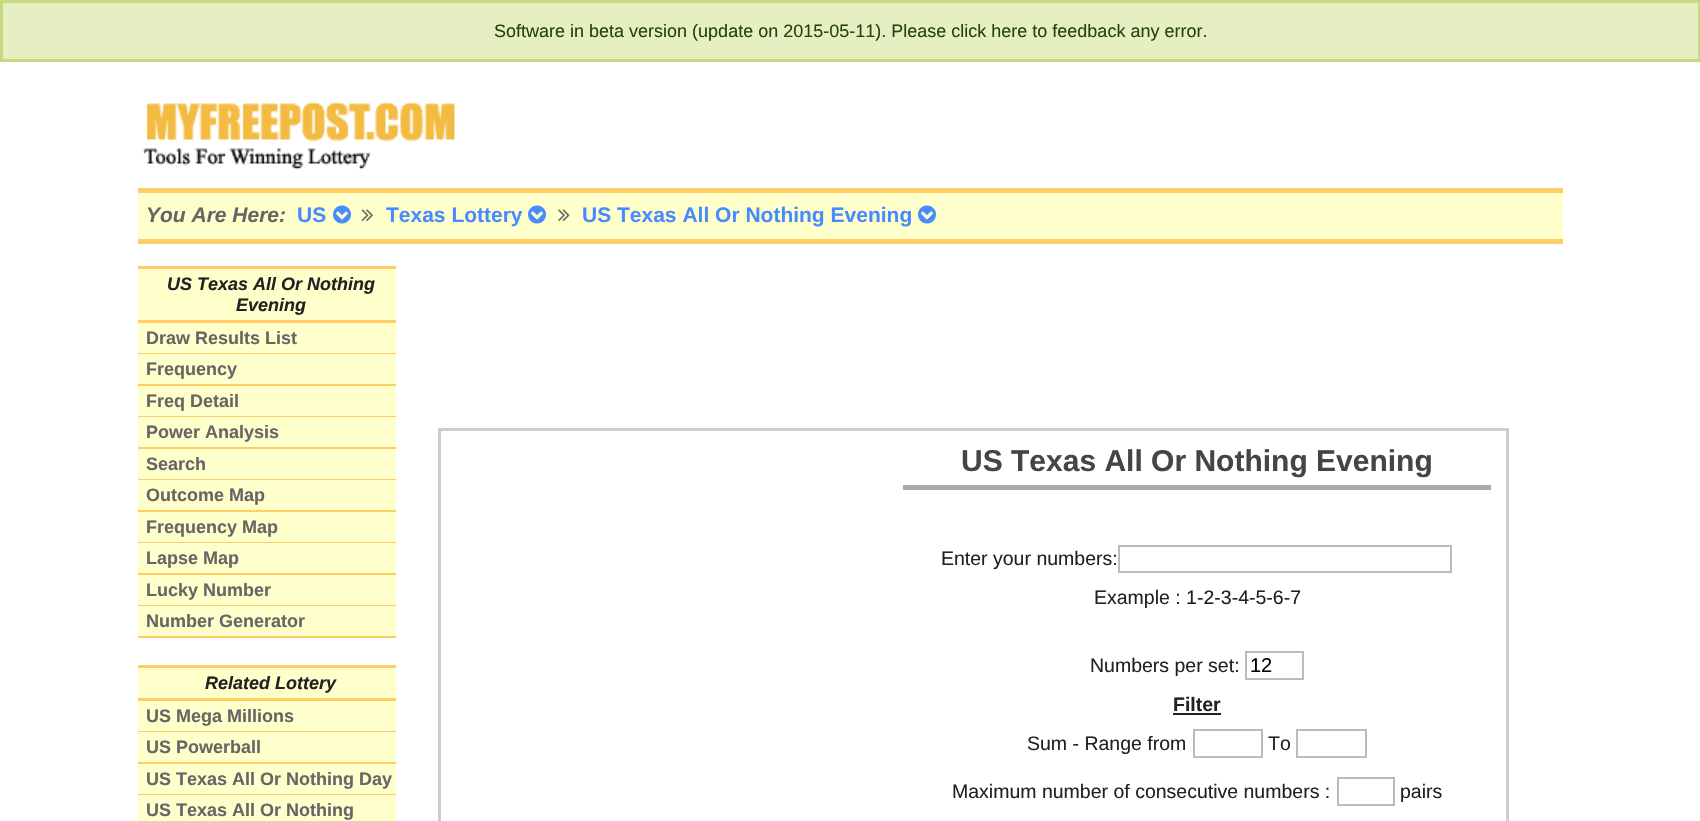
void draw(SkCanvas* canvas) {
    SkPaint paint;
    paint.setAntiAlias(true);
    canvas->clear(0xFFFFFFFF);
    paint.setColor(0xFFE6EFC2);
    canvas->drawRect(SkRect::MakeXYWH(1.5f, 1.5f, 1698, 59), paint);
    paint.setStyle(SkPaint::kStroke_Style);
    paint.setStrokeWidth(3);
    paint.setColor(0xFFC6D880);
    canvas->drawRect(SkRect::MakeXYWH(1.5f, 1.5f, 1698, 59), paint);
    SkFont font1(fontMgr->matchFamilyStyle("Liberation Sans", SkFontStyle::Normal()), 18);
    font1.setSubpixel(true);
    paint.setStyle(SkPaint::kFill_Style);
    paint.setColor(0xFF264409);
    canvas->drawString("Software in beta version (update on 2015-05-11). Please click here to feedback any error.", 494, 37, font1, paint);
    canvas->drawImageRect(SkImages::DeferredFromEncodedData(SkData::MakeFromFileName("img1.png")), SkRect::MakeXYWH(143, 101, 312, 69), SkSamplingOptions());
    paint.setColor(0xFFFFFFCC);
    canvas->drawRect(SkRect::MakeXYWH(138, 193, 1425, 46), paint);
    paint.setColor(0xFFFFCC66);
    canvas->drawRect(SkRect::MakeXYWH(138, 188, 1425, 5), paint);
    canvas->drawRect(SkRect::MakeXYWH(138, 239, 1425, 5), paint);
    SkFont font2(fontMgr->matchFamilyStyle("Liberation Sans", SkFontStyle::BoldItalic()), 21);
    font2.setSubpixel(true);
    paint.setColor(0xFF666666);
    canvas->drawString("You Are Here:", 146, 222, font2, paint);
    SkFont font3(fontMgr->matchFamilyStyle("Liberation Sans", SkFontStyle::Bold()), 21);
    font3.setSubpixel(true);
    paint.setColor(0xFF468BFF);
    canvas->drawString("US", 297, 222, font3, paint);
    canvas->drawImageRect(SkImages::DeferredFromEncodedData(SkData::MakeFromFileName("img2.png")), SkRect::MakeXYWH(333, 205, 18, 19), SkSamplingOptions());
    canvas->drawImageRect(SkImages::DeferredFromEncodedData(SkData::MakeFromFileName("img3.png")), SkRect::MakeXYWH(361, 209, 12, 12), SkSamplingOptions());
    canvas->drawString("Texas Lottery", 386, 222, font3, paint);
    canvas->drawImageRect(SkImages::DeferredFromEncodedData(SkData::MakeFromFileName("img2.png")), SkRect::MakeXYWH(528, 205, 18, 19), SkSamplingOptions());
    canvas->drawImageRect(SkImages::DeferredFromEncodedData(SkData::MakeFromFileName("img4.png")), SkRect::MakeXYWH(558, 209, 12, 12), SkSamplingOptions());
    canvas->drawString("US Texas All Or Nothing Evening", 582, 222, font3, paint);
    canvas->drawImageRect(SkImages::DeferredFromEncodedData(SkData::MakeFromFileName("img2.png")), SkRect::MakeXYWH(918, 205, 18, 19), SkSamplingOptions());
    paint.setColor(0xFFFFFFCC);
    canvas->drawRect(SkRect::MakeXYWH(138, 269, 258, 51), paint);
    paint.setColor(0xFFFFCC66);
    canvas->drawRect(SkRect::MakeXYWH(138, 266, 258, 3), paint);
    canvas->drawRect(SkRect::MakeXYWH(138, 320, 258, 3), paint);
    SkFont font4(fontMgr->matchFamilyStyle("Liberation Sans", SkFontStyle::BoldItalic()), 18);
    font4.setSubpixel(true);
    paint.setColor(0xFF222222);
    canvas->drawString("US Texas All Or Nothing", 167, 290, font4, paint);
    canvas->drawString("Evening", 236, 311, font4, paint);
    paint.setColor(0xFFFFFFCC);
    canvas->drawRect(SkRect::MakeXYWH(138, 323, 258, 30), paint);
    paint.setColor(0xFFFFCC66);
    canvas->drawRect(SkRect::MakeXYWH(138, 353, 258, 1), paint);
    SkFont font5(fontMgr->matchFamilyStyle("Liberation Sans", SkFontStyle::Bold()), 18);
    font5.setSubpixel(true);
    paint.setColor(0xFF666666);
    canvas->drawString("Draw Results List", 146, 344, font5, paint);
    paint.setColor(0xFFFFFFCC);
    canvas->drawRect(SkRect::MakeXYWH(138, 354, 258, 30), paint);
    paint.setColor(0xFFFFCC66);
    canvas->drawRect(SkRect::MakeXYWH(138, 384, 258, 2), paint);
    paint.setColor(0xFF666666);
    canvas->drawString("Frequency", 146, 375, font5, paint);
    paint.setColor(0xFFFFFFCC);
    canvas->drawRect(SkRect::MakeXYWH(138, 386, 258, 30), paint);
    paint.setColor(0xFFFFCC66);
    canvas->drawRect(SkRect::MakeXYWH(138, 416, 258, 1), paint);
    paint.setColor(0xFF666666);
    canvas->drawString("Freq Detail", 146, 407, font5, paint);
    paint.setColor(0xFFFFFFCC);
    canvas->drawRect(SkRect::MakeXYWH(138, 417, 258, 30), paint);
    paint.setColor(0xFFFFCC66);
    canvas->drawRect(SkRect::MakeXYWH(138, 447, 258, 2), paint);
    paint.setColor(0xFF666666);
    canvas->drawString("Power Analysis", 146, 438, font5, paint);
    paint.setColor(0xFFFFFFCC);
    canvas->drawRect(SkRect::MakeXYWH(138, 449, 258, 30), paint);
    paint.setColor(0xFFFFCC66);
    canvas->drawRect(SkRect::MakeXYWH(138, 479, 258, 1), paint);
    paint.setColor(0xFF666666);
    canvas->drawString("Search", 146, 470, font5, paint);
    paint.setColor(0xFFFFFFCC);
    canvas->drawRect(SkRect::MakeXYWH(138, 480, 258, 30), paint);
    paint.setColor(0xFFFFCC66);
    canvas->drawRect(SkRect::MakeXYWH(138, 510, 258, 2), paint);
    paint.setColor(0xFF666666);
    canvas->drawString("Outcome Map", 146, 501, font5, paint);
    paint.setColor(0xFFFFFFCC);
    canvas->drawRect(SkRect::MakeXYWH(138, 512, 258, 30), paint);
    paint.setColor(0xFFFFCC66);
    canvas->drawRect(SkRect::MakeXYWH(138, 542, 258, 1), paint);
    paint.setColor(0xFF666666);
    canvas->drawString("Frequency Map", 146, 533, font5, paint);
    paint.setColor(0xFFFFFFCC);
    canvas->drawRect(SkRect::MakeXYWH(138, 543, 258, 30), paint);
    paint.setColor(0xFFFFCC66);
    canvas->drawRect(SkRect::MakeXYWH(138, 573, 258, 2), paint);
    paint.setColor(0xFF666666);
    canvas->drawString("Lapse Map", 146, 564, font5, paint);
    paint.setColor(0xFFFFFFCC);
    canvas->drawRect(SkRect::MakeXYWH(138, 575, 258, 30), paint);
    paint.setColor(0xFFFFCC66);
    canvas->drawRect(SkRect::MakeXYWH(138, 605, 258, 1), paint);
    paint.setColor(0xFF666666);
    canvas->drawString("Lucky Number", 146, 596, font5, paint);
    paint.setColor(0xFFFFFFCC);
    canvas->drawRect(SkRect::MakeXYWH(138, 606, 258, 30), paint);
    paint.setColor(0xFFFFCC66);
    canvas->drawRect(SkRect::MakeXYWH(138, 636, 258, 2), paint);
    paint.setColor(0xFF666666);
    canvas->drawString("Number Generator", 146, 627, font5, paint);
    paint.setColor(0xFFFFFFCC);
    canvas->drawRect(SkRect::MakeXYWH(138, 668, 258, 30), paint);
    paint.setColor(0xFFFFCC66);
    canvas->drawRect(SkRect::MakeXYWH(138, 665, 258, 3), paint);
    canvas->drawRect(SkRect::MakeXYWH(138, 698, 258, 3), paint);
    paint.setColor(0xFF222222);
    canvas->drawString("Related Lottery", 205, 689, font4, paint);
    paint.setColor(0xFFFFFFCC);
    canvas->drawRect(SkRect::MakeXYWH(138, 701, 258, 30), paint);
    paint.setColor(0xFFFFCC66);
    canvas->drawRect(SkRect::MakeXYWH(138, 731, 258, 1), paint);
    paint.setColor(0xFF666666);
    canvas->drawString("US Mega Millions", 146, 722, font5, paint);
    paint.setColor(0xFFFFFFCC);
    canvas->drawRect(SkRect::MakeXYWH(138, 732, 258, 30), paint);
    paint.setColor(0xFFFFCC66);
    canvas->drawRect(SkRect::MakeXYWH(138, 762, 258, 2), paint);
    paint.setColor(0xFF666666);
    canvas->drawString("US Powerball", 146, 753, font5, paint);
    paint.setColor(0xFFFFFFCC);
    canvas->drawRect(SkRect::MakeXYWH(138, 764, 258, 30), paint);
    paint.setColor(0xFFFFCC66);
    canvas->drawRect(SkRect::MakeXYWH(138, 794, 258, 1), paint);
    paint.setColor(0xFF666666);
    canvas->drawString("US Texas All Or Nothing Day", 146, 785, font5, paint);
    paint.setColor(0xFFFFFFCC);
    canvas->drawRect(SkRect::MakeXYWH(138, 795, 258, 26), paint);
    paint.setColor(0xFF666666);
    canvas->drawString("US Texas All Or Nothing", 146, 816, font5, paint);
    paint.setStyle(SkPaint::kStroke_Style);
    paint.setColor(0xFFCCCCCC);
    canvas->drawRect(SkRect::MakeXYWH(439.5f, 429.5f, 1068, 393), paint);
    paint.setStyle(SkPaint::kFill_Style);
    paint.setColor(0xFFAAAAAA);
    canvas->drawRect(SkRect::MakeXYWH(903, 485, 588, 5), paint);
    SkFont font6(fontMgr->matchFamilyStyle("Liberation Sans", SkFontStyle::Bold()), 30);
    font6.setSubpixel(true);
    paint.setColor(0xFF454545);
    canvas->drawString("US Texas All Or Nothing Evening", 961, 471, font6, paint);
    SkFont font7(fontMgr->matchFamilyStyle("Liberation Sans", SkFontStyle::Normal()), 19.5f);
    font7.setSubpixel(true);
    paint.setColor(0xFF222222);
    canvas->drawString("Enter your numbers:", 941, 565, font7, paint);
    paint.setStyle(SkPaint::kStroke_Style);
    paint.setStrokeWidth(2);
    paint.setColor(0xFFBBBBBB);
    canvas->drawRect(SkRect::MakeXYWH(1119, 546, 332, 26), paint);
    paint.setStyle(SkPaint::kFill_Style);
    paint.setColor(0xFF222222);
    canvas->drawString("Example : 1-2-3-4-5-6-7", 1094, 604, font7, paint);
    canvas->drawString("Numbers per set:", 1090, 672, font7, paint);
    paint.setStyle(SkPaint::kStroke_Style);
    paint.setColor(0xFFBBBBBB);
    canvas->drawRect(SkRect::MakeXYWH(1246, 652, 57, 27), paint);
    SkFont font8(fontMgr->matchFamilyStyle("Liberation Sans", SkFontStyle::Normal()), 20);
    font8.setSubpixel(true);
    paint.setStyle(SkPaint::kFill_Style);
    paint.setColor(0xFF000000);
    canvas->drawString("12", 1250, 672, font8, paint);
    SkFont font9(fontMgr->matchFamilyStyle("Liberation Sans", SkFontStyle::Bold()), 19.5f);
    font9.setSubpixel(true);
    paint.setColor(0xFF222222);
    canvas->drawString("Filter", 1173, 711, font9, paint);
    canvas->drawRect(SkRect::MakeXYWH(1173, 713, 48, 2), paint);
    canvas->drawString("Sum - Range from", 1027, 750, font7, paint);
    paint.setStyle(SkPaint::kStroke_Style);
    paint.setColor(0xFFBBBBBB);
    canvas->drawRect(SkRect::MakeXYWH(1194, 730, 68, 27), paint);
    paint.setStyle(SkPaint::kFill_Style);
    paint.setColor(0xFF222222);
    canvas->drawString("To", 1268, 750, font7, paint);
    paint.setStyle(SkPaint::kStroke_Style);
    paint.setColor(0xFFBBBBBB);
    canvas->drawRect(SkRect::MakeXYWH(1297, 730, 69, 27), paint);
    paint.setStyle(SkPaint::kFill_Style);
    paint.setColor(0xFF222222);
    canvas->drawString("Maximum number of consecutive numbers :", 952, 798, font7, paint);
    paint.setStyle(SkPaint::kStroke_Style);
    paint.setColor(0xFFBBBBBB);
    canvas->drawRect(SkRect::MakeXYWH(1338, 778, 56, 27), paint);
    paint.setStyle(SkPaint::kFill_Style);
    paint.setColor(0xFF222222);
    canvas->drawString("pairs", 1400, 798, font7, paint);
}
